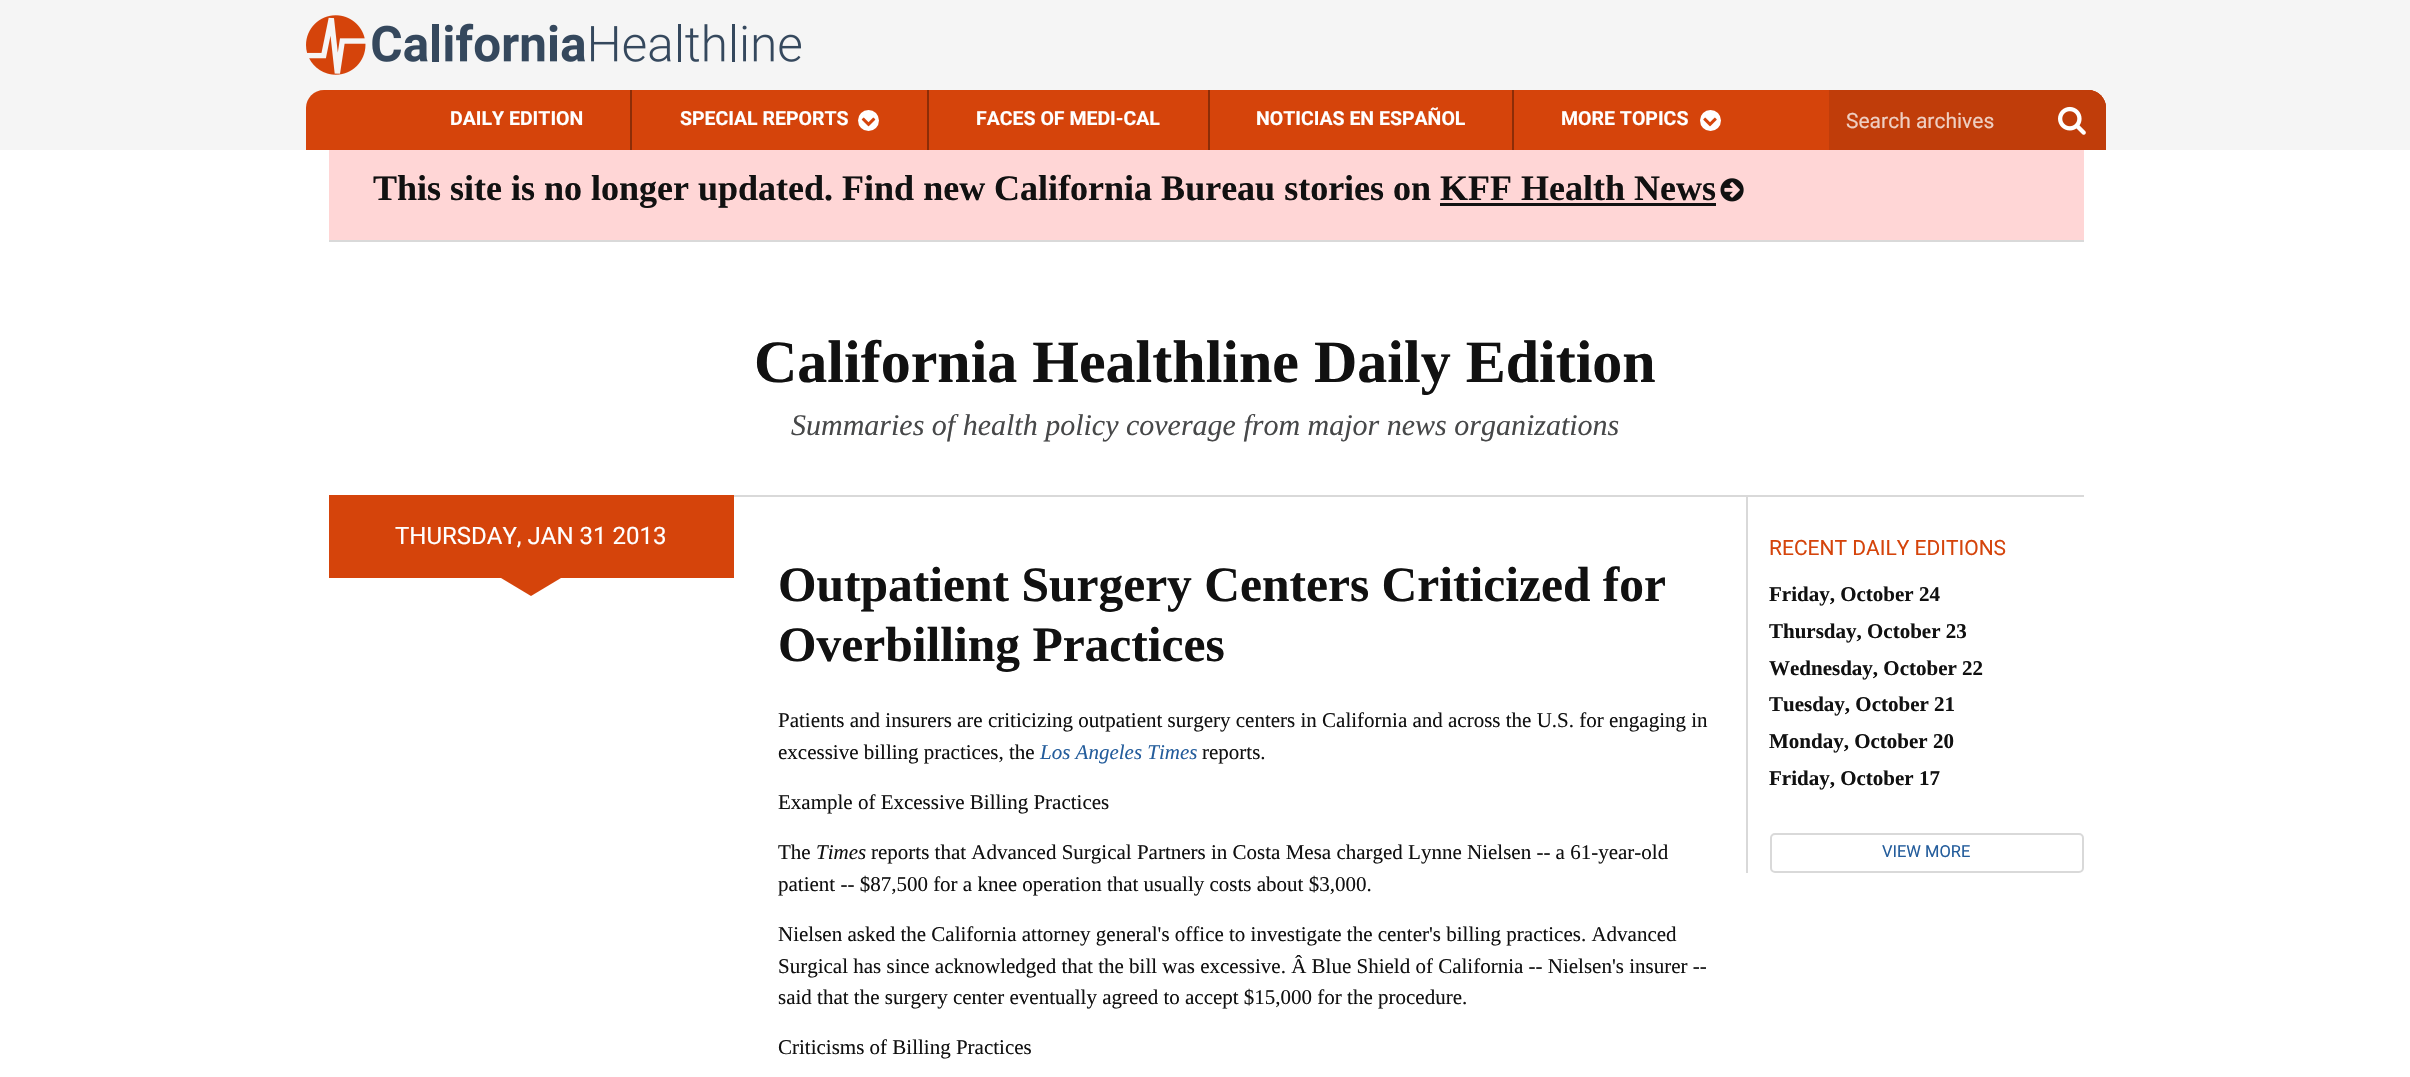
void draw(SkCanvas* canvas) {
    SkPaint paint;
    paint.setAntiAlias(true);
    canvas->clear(0xFFFFFFFF);
    paint.setColor(0xFFF5F5F5);
    canvas->drawRect(SkRect::MakeXYWH(0, 0, 2410, 150), paint);
    canvas->drawImageRect(SkImages::DeferredFromEncodedData(SkData::MakeFromFileName("img1.png")), SkRect::MakeXYWH(306, 15, 495, 60), SkSamplingOptions());
    paint.setColor(0xFFD5440B);
    canvas->drawPath(SkPathBuilder().moveTo(324, 90).lineTo(2088, 90).cubicTo(2098, 90, 2106, 98, 2106, 108).lineTo(2106, 150).lineTo(306, 150).lineTo(306, 108).cubicTo(306, 98, 314, 90, 324, 90).close().detach(), paint);
    SkFont font1(fontMgr->matchFamilyStyle("Roboto", SkFontStyle::Bold()), 19.5f);
    font1.setSubpixel(true);
    paint.setColor(0xFFFFFFFF);
    canvas->drawString("DAILY EDITION", 450, 125, font1, paint);
    paint.setColor(0xFF8C2D07);
    canvas->drawRect(SkRect::MakeXYWH(630, 90, 2, 60), paint);
    paint.setColor(0xFFFFFFFF);
    canvas->drawString("SPECIAL REPORTS", 680, 125, font1, paint);
    canvas->drawCircle(868.5f, 120.5f, 10.5f, paint);
    canvas->drawImageRect(SkImages::DeferredFromEncodedData(SkData::MakeFromFileName("img2.png")), SkRect::MakeXYWH(861, 117, 15, 10), SkSamplingOptions());
    paint.setColor(0xFF8C2D07);
    canvas->drawRect(SkRect::MakeXYWH(927, 90, 2, 60), paint);
    paint.setColor(0xFFFFFFFF);
    canvas->drawString("FACES OF MEDI-CAL", 976, 125, font1, paint);
    paint.setColor(0xFF8C2D07);
    canvas->drawRect(SkRect::MakeXYWH(1208, 90, 2, 60), paint);
    paint.setColor(0xFFFFFFFF);
    canvas->drawString("NOTICIAS EN ESPAÑOL", 1256, 125, font1, paint);
    paint.setColor(0xFF8C2D07);
    canvas->drawRect(SkRect::MakeXYWH(1512, 90, 2, 60), paint);
    paint.setColor(0xFFFFFFFF);
    canvas->drawString("MORE TOPICS", 1561, 125, font1, paint);
    canvas->drawCircle(1710.5f, 120.5f, 10.5f, paint);
    canvas->drawImageRect(SkImages::DeferredFromEncodedData(SkData::MakeFromFileName("img3.png")), SkRect::MakeXYWH(1703, 117, 14, 10), SkSamplingOptions());
    paint.setColor(0xFFC03D0A);
    canvas->drawPath(SkPathBuilder().moveTo(1829, 90).lineTo(2088, 90).cubicTo(2098, 90, 2106, 98, 2106, 108).lineTo(2106, 150).lineTo(1829, 150).close().detach(), paint);
    SkFont font2(fontMgr->matchFamilyStyle("Roboto", SkFontStyle::Normal()), 21);
    font2.setSubpixel(true);
    paint.setColor(0xFFEFCFC2);
    canvas->drawString("Search archives", 1846, 128, font2, paint);
    paint.setColor(0xFFC03D0A);
    canvas->drawPath(SkPathBuilder().moveTo(2040, 90).lineTo(2088, 90).cubicTo(2098, 90, 2106, 98, 2106, 108).lineTo(2106, 150).lineTo(2040, 150).close().detach(), paint);
    canvas->drawImageRect(SkImages::DeferredFromEncodedData(SkData::MakeFromFileName("img4.png")), SkRect::MakeXYWH(2058, 106, 28, 29), SkSamplingOptions());
    paint.setColor(0xFFFFD6D6);
    canvas->drawRect(SkRect::MakeXYWH(329, 150, 1755, 90), paint);
    paint.setColor(0xFFD9D9D9);
    canvas->drawRect(SkRect::MakeXYWH(329, 240, 1755, 2), paint);
    SkFont font3(fontMgr->matchFamilyStyle("Liberation Serif", SkFontStyle::Bold()), 36);
    font3.setSubpixel(true);
    paint.setColor(0xFF111111);
    canvas->drawString("This site is no longer updated. Find new California Bureau stories on KFF Health News", 373, 200, font3, paint);
    canvas->drawImageRect(SkImages::DeferredFromEncodedData(SkData::MakeFromFileName("img5.png")), SkRect::MakeXYWH(1720, 178, 24, 24), SkSamplingOptions());
    canvas->drawRect(SkRect::MakeXYWH(1440, 203, 276, 3), paint);
    paint.setColor(0xFFD9D9D9);
    canvas->drawRect(SkRect::MakeXYWH(734, 495, 1350, 2), paint);
    SkFont font4(fontMgr->matchFamilyStyle("Liberation Serif", SkFontStyle::Bold()), 60);
    font4.setSubpixel(true);
    paint.setColor(0xFF111111);
    canvas->drawString("California Healthline Daily Edition", 754, 382, font4, paint);
    SkFont font5(fontMgr->matchFamilyStyle("Liberation Serif", SkFontStyle::Italic()), 30);
    font5.setSubpixel(true);
    paint.setColor(0xFF474849);
    canvas->drawString("Summaries of health policy coverage from major news organizations", 791, 435, font5, paint);
    paint.setColor(0xFFD5440B);
    canvas->drawRect(SkRect::MakeXYWH(329, 495, 405, 83), paint);
    SkFont font6(fontMgr->matchFamilyStyle("Roboto", SkFontStyle::Normal()), 24);
    font6.setSubpixel(true);
    paint.setColor(0xFFFFFFFF);
    canvas->drawString("THURSDAY, JAN 31 2013", 395, 544, font6, paint);
    paint.setColor(0xFFD5440B);
    canvas->drawPath(SkPathBuilder().moveTo(501, 578).lineTo(561, 578).lineTo(531, 596).close().detach(), paint);
    SkFont font7(fontMgr->matchFamilyStyle("Liberation Serif", SkFontStyle::Bold()), 49.5f);
    font7.setSubpixel(true);
    paint.setColor(0xFF111111);
    canvas->drawString("Outpatient Surgery Centers Criticized for", 778, 601, font7, paint);
    canvas->drawString("Overbilling Practices", 778, 661, font7, paint);
    SkFont font8(fontMgr->matchFamilyStyle("Liberation Serif", SkFontStyle::Normal()), 21);
    font8.setSubpixel(true);
    canvas->drawString("Patients and insurers are criticizing outpatient surgery centers in California and across the U.S. for engaging in", 778, 727, font8, paint);
    canvas->drawString("excessive billing practices, the", 778, 759, font8, paint);
    SkFont font9(fontMgr->matchFamilyStyle("Liberation Serif", SkFontStyle::Italic()), 21);
    font9.setSubpixel(true);
    paint.setColor(0xFF245D9C);
    canvas->drawString("Los Angeles Times", 1040, 759, font9, paint);
    paint.setColor(0xFF111111);
    canvas->drawString("reports.", 1202, 759, font8, paint);
    canvas->drawString("Example of Excessive Billing Practices", 778, 809, font8, paint);
    canvas->drawString("The", 778, 859, font8, paint);
    canvas->drawString("Times", 816, 859, font9, paint);
    canvas->drawString("reports that Advanced Surgical Partners in Costa Mesa charged Lynne Nielsen -- a 61-year-old", 871, 859, font8, paint);
    canvas->drawString("patient -- $87,500 for a knee operation that usually costs about $3,000.", 778, 891, font8, paint);
    canvas->drawString("Nielsen asked the California attorney general's office to investigate the center's billing practices. Advanced", 778, 941, font8, paint);
    canvas->drawString("Surgical has since acknowledged that the bill was excessive. Â Blue Shield of California -- Nielsen's insurer --", 778, 973, font8, paint);
    canvas->drawString("said that the surgery center eventually agreed to accept $15,000 for the procedure.", 778, 1004, font8, paint);
    canvas->drawString("Criticisms of Billing Practices", 778, 1054, font8, paint);
    paint.setColor(0xFFD9D9D9);
    canvas->drawRect(SkRect::MakeXYWH(1746, 497, 2, 376), paint);
    paint.setColor(0xFFD5440B);
    canvas->drawString("RECENT DAILY EDITIONS", 1769, 555, font2, paint);
    SkFont font10(fontMgr->matchFamilyStyle("Liberation Serif", SkFontStyle::Bold()), 21);
    font10.setSubpixel(true);
    paint.setColor(0xFF111111);
    canvas->drawString("Friday, October 24", 1769, 601, font10, paint);
    canvas->drawString("Thursday, October 23", 1769, 638, font10, paint);
    canvas->drawString("Wednesday, October 22", 1769, 675, font10, paint);
    canvas->drawString("Tuesday, October 21", 1769, 711, font10, paint);
    canvas->drawString("Monday, October 20", 1769, 748, font10, paint);
    canvas->drawString("Friday, October 17", 1769, 785, font10, paint);
    paint.setStyle(SkPaint::kStroke_Style);
    paint.setStrokeWidth(2);
    paint.setColor(0xFFD9D9D9);
    canvas->drawRoundRect(SkRect::MakeXYWH(1771, 834, 312, 38), 4, 4, paint);
    SkFont font11(fontMgr->matchFamilyStyle("Roboto", SkFontStyle::Normal()), 16.5f);
    font11.setSubpixel(true);
    paint.setStyle(SkPaint::kFill_Style);
    paint.setColor(0xFF245D9C);
    canvas->drawString("VIEW MORE", 1882, 857, font11, paint);
}
